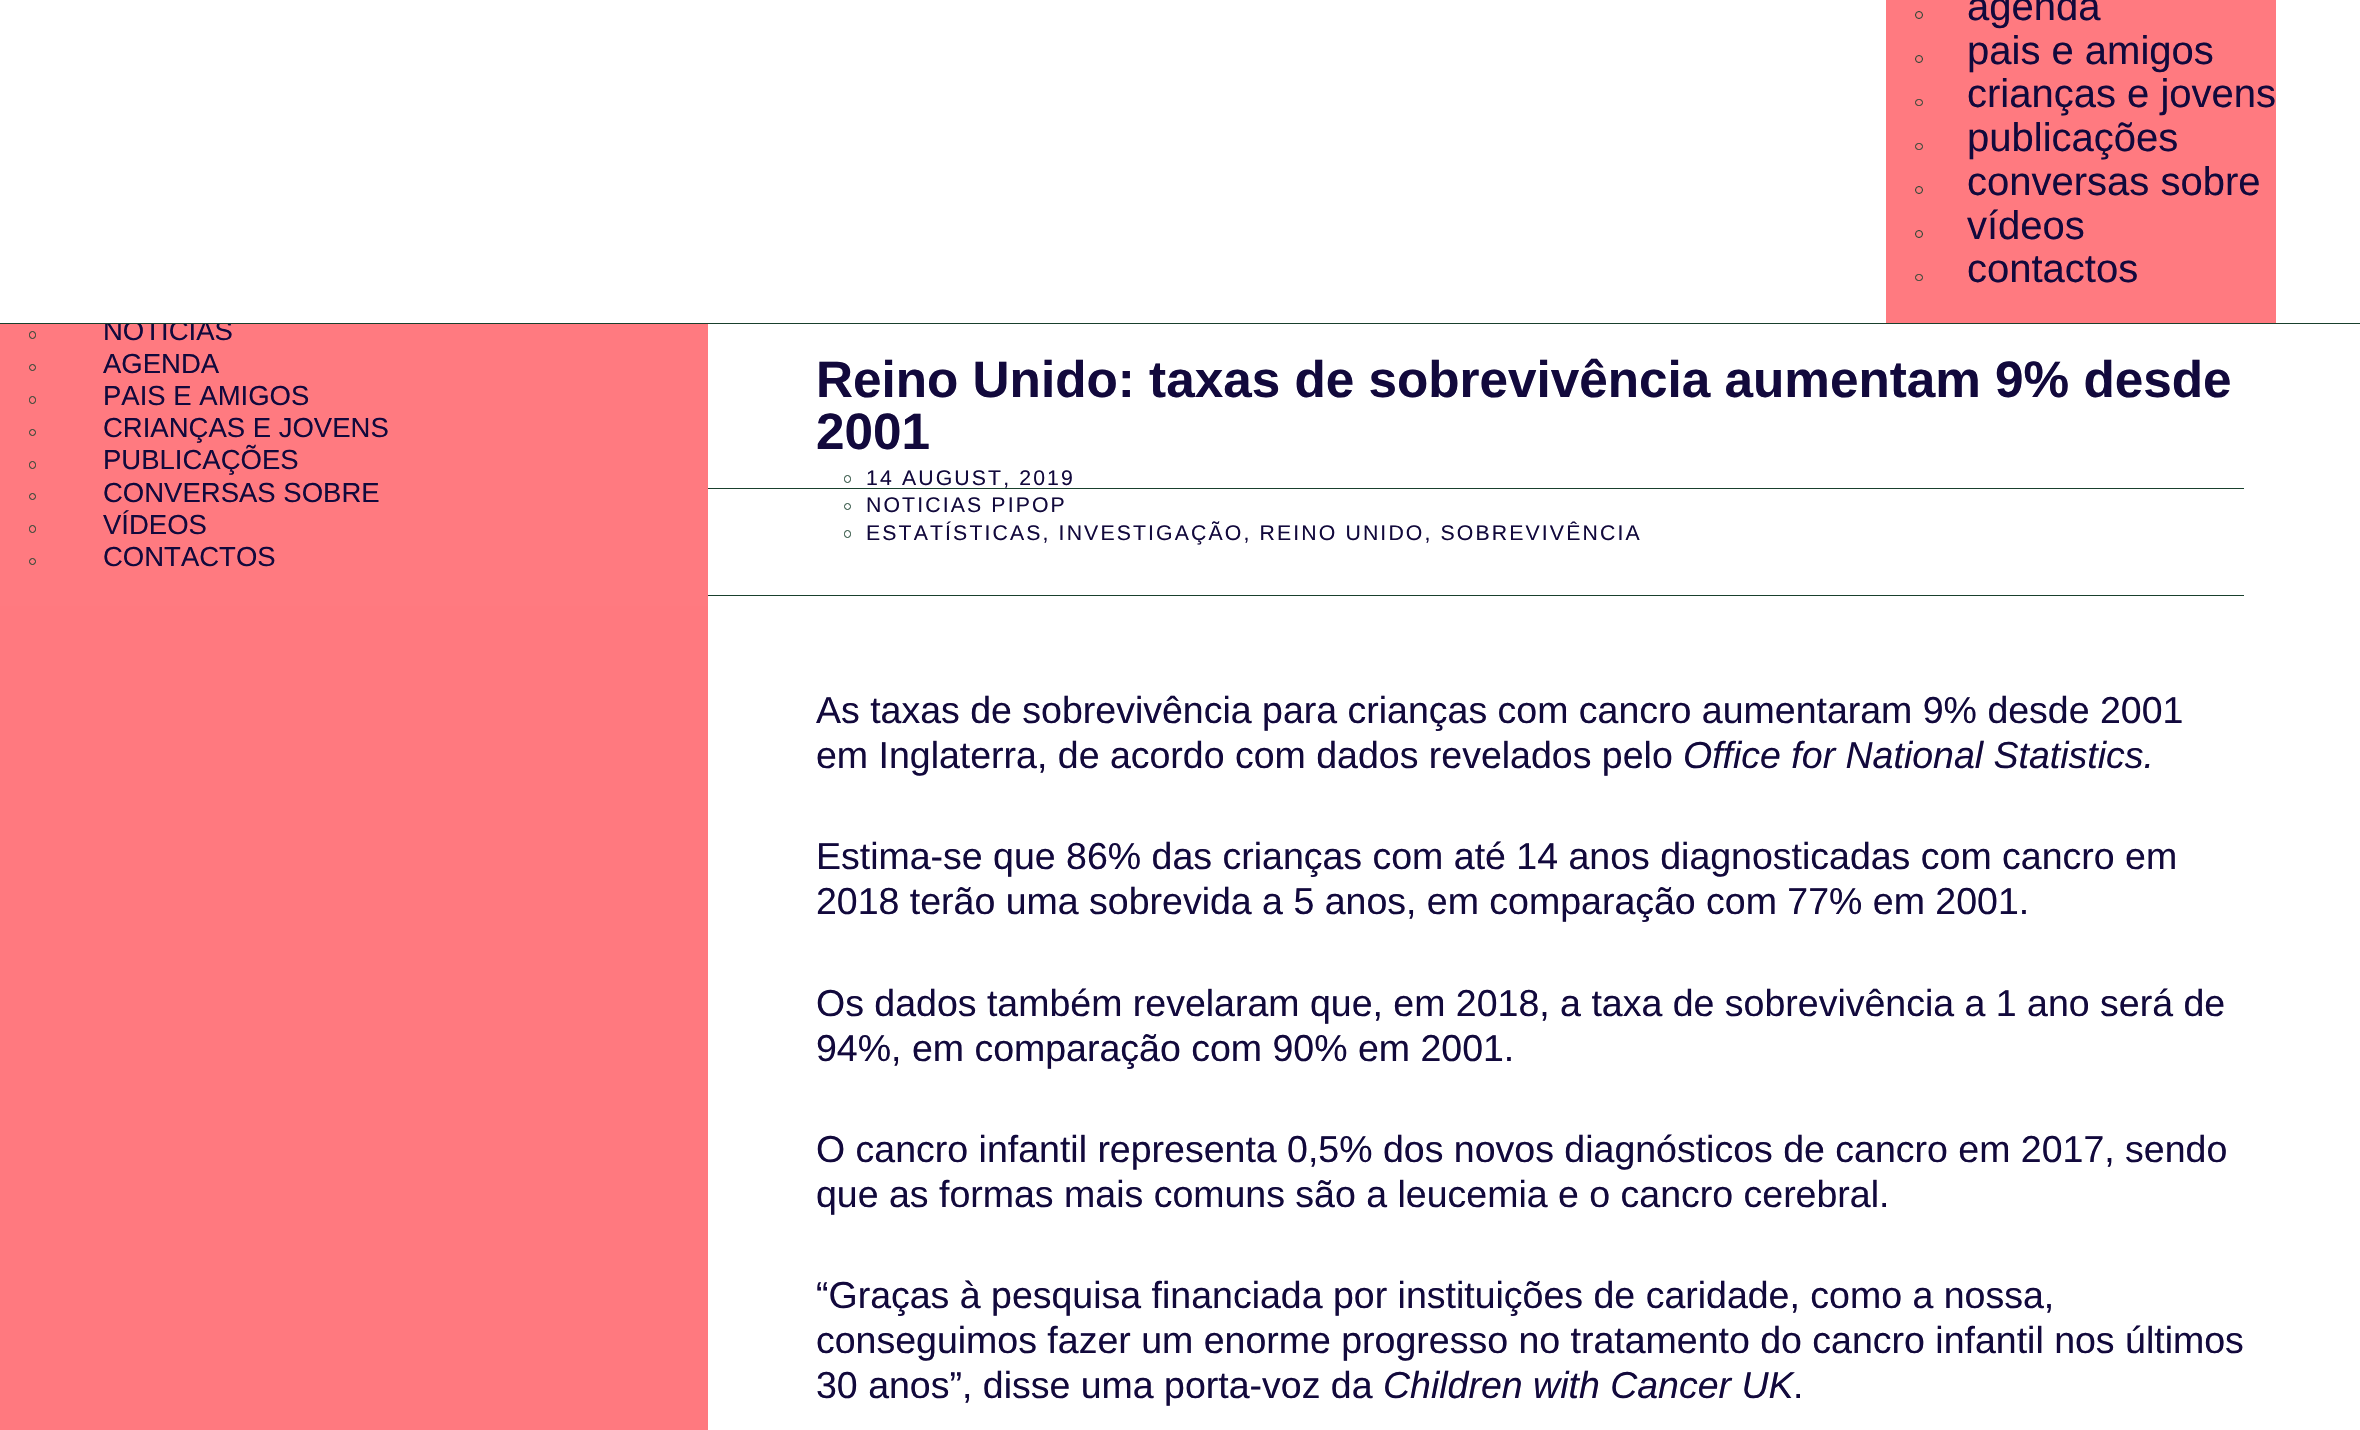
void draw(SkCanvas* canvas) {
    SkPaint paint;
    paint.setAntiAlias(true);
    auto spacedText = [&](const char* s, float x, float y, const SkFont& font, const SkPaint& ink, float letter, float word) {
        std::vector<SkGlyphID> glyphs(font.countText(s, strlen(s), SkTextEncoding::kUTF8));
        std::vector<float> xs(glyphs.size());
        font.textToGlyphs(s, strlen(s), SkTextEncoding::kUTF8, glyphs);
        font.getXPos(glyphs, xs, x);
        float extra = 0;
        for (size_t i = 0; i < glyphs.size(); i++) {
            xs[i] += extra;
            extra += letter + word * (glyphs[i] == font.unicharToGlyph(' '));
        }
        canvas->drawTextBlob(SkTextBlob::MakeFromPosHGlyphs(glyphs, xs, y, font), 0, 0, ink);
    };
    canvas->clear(0xFFFFFFFF);
    paint.setColor(0xFFFF7A80);
    canvas->drawRect(SkRect::MakeXYWH(0, 324, 708, 282), paint);
    SkFont font1(fontMgr->matchFamilyStyle("Liberation Sans", SkFontStyle::Normal()), 27.5f);
    font1.setSubpixel(true);
    paint.setColor(0xFF12093C);
    canvas->drawString("NOTÍCIAS", 103, 340, font1, paint);
    paint.setColor(0xFFFFFFFF);
    canvas->drawRect(SkRect::MakeXYWH(104, 316, 126, 7), paint);
    paint.setColor(0xFF19402D);
    canvas->drawRect(SkRect::MakeXYWH(0, 323, 2360, 1), paint);
    paint.setColor(0xFFFF7A80);
    canvas->drawRect(SkRect::MakeXYWH(1886, 0, 390, 323), paint);
    paint.setStyle(SkPaint::kStroke_Style);
    paint.setStrokeWidth(1);
    paint.setColor(0xFF19402D);
    canvas->drawCircle(1919, 15, 3.5f, paint);
    SkFont font2(fontMgr->matchFamilyStyle("Liberation Sans", SkFontStyle::Normal()), 40);
    font2.setSubpixel(true);
    paint.setStyle(SkPaint::kFill_Style);
    paint.setColor(0xFF12093C);
    canvas->drawString("agenda", 1967, 20, font2, paint);
    paint.setStyle(SkPaint::kStroke_Style);
    paint.setColor(0xFF19402D);
    canvas->drawCircle(1919, 59, 3.5f, paint);
    paint.setStyle(SkPaint::kFill_Style);
    paint.setColor(0xFF12093C);
    canvas->drawString("pais e amigos", 1967, 64, font2, paint);
    paint.setStyle(SkPaint::kStroke_Style);
    paint.setColor(0xFF19402D);
    canvas->drawRoundRect(SkRect::MakeXYWH(1915.5f, 99.5f, 7, 6), 3, 3, paint);
    paint.setStyle(SkPaint::kFill_Style);
    paint.setColor(0xFF12093C);
    canvas->drawString("crianças e jovens", 1967, 107, font2, paint);
    paint.setStyle(SkPaint::kStroke_Style);
    paint.setColor(0xFF19402D);
    canvas->drawRoundRect(SkRect::MakeXYWH(1915.5f, 143.5f, 7, 6), 3, 3, paint);
    paint.setStyle(SkPaint::kFill_Style);
    paint.setColor(0xFF12093C);
    canvas->drawString("publicações", 1967, 151, font2, paint);
    paint.setStyle(SkPaint::kStroke_Style);
    paint.setColor(0xFF19402D);
    canvas->drawCircle(1919, 190, 3.5f, paint);
    paint.setStyle(SkPaint::kFill_Style);
    paint.setColor(0xFF12093C);
    canvas->drawString("conversas sobre", 1967, 195, font2, paint);
    paint.setStyle(SkPaint::kStroke_Style);
    paint.setColor(0xFF19402D);
    canvas->drawCircle(1919, 234, 3.5f, paint);
    paint.setStyle(SkPaint::kFill_Style);
    paint.setColor(0xFF12093C);
    canvas->drawString("vídeos", 1967, 239, font2, paint);
    paint.setStyle(SkPaint::kStroke_Style);
    paint.setColor(0xFF19402D);
    canvas->drawRoundRect(SkRect::MakeXYWH(1915.5f, 274.5f, 7, 6), 3, 3, paint);
    paint.setStyle(SkPaint::kFill_Style);
    paint.setColor(0xFF12093C);
    canvas->drawString("contactos", 1967, 282, font2, paint);
    paint.setColor(0xFFFF797F);
    canvas->drawRect(SkRect::MakeXYWH(0, 606, 708, 824), paint);
    paint.setStyle(SkPaint::kStroke_Style);
    paint.setColor(0xFF19402D);
    canvas->drawRoundRect(SkRect::MakeXYWH(29.5f, 331.5f, 6, 7), 3, 3, paint);
    canvas->drawCircle(32.5f, 367.5f, 3, paint);
    paint.setStyle(SkPaint::kFill_Style);
    paint.setColor(0xFF12093C);
    canvas->drawString("AGENDA", 103, 373, font1, paint);
    paint.setStyle(SkPaint::kStroke_Style);
    paint.setColor(0xFF19402D);
    canvas->drawRoundRect(SkRect::MakeXYWH(29.5f, 396.5f, 6, 7), 3, 3, paint);
    paint.setStyle(SkPaint::kFill_Style);
    paint.setColor(0xFF12093C);
    canvas->drawString("PAIS E AMIGOS", 103, 405, font1, paint);
    paint.setStyle(SkPaint::kStroke_Style);
    paint.setColor(0xFF19402D);
    canvas->drawCircle(32.5f, 432.5f, 3, paint);
    paint.setStyle(SkPaint::kFill_Style);
    paint.setColor(0xFF12093C);
    canvas->drawString("CRIANÇAS E JOVENS", 103, 437, font1, paint);
    paint.setStyle(SkPaint::kStroke_Style);
    paint.setColor(0xFF19402D);
    canvas->drawRoundRect(SkRect::MakeXYWH(29.5f, 461.5f, 6, 7), 3, 3, paint);
    paint.setStyle(SkPaint::kFill_Style);
    paint.setColor(0xFF12093C);
    canvas->drawString("PUBLICAÇÕES", 103, 469, font1, paint);
    paint.setStyle(SkPaint::kStroke_Style);
    paint.setColor(0xFF19402D);
    canvas->drawCircle(32.5f, 496.5f, 3, paint);
    paint.setStyle(SkPaint::kFill_Style);
    paint.setColor(0xFF12093C);
    canvas->drawString("CONVERSAS SOBRE", 103, 502, font1, paint);
    paint.setStyle(SkPaint::kStroke_Style);
    paint.setColor(0xFF19402D);
    canvas->drawRoundRect(SkRect::MakeXYWH(29.5f, 525.5f, 6, 7), 3, 3, paint);
    paint.setStyle(SkPaint::kFill_Style);
    paint.setColor(0xFF12093C);
    canvas->drawString("VÍDEOS", 103, 534, font1, paint);
    paint.setStyle(SkPaint::kStroke_Style);
    paint.setColor(0xFF19402D);
    canvas->drawCircle(32.5f, 561.5f, 3, paint);
    paint.setStyle(SkPaint::kFill_Style);
    paint.setColor(0xFF12093C);
    canvas->drawString("CONTACTOS", 103, 566, font1, paint);
    SkFont font3(fontMgr->matchFamilyStyle("Liberation Sans", SkFontStyle::Bold()), 51.25f);
    font3.setSubpixel(true);
    canvas->drawString("Reino Unido: taxas de sobrevivência aumentam 9% desde", 816, 397, font3, paint);
    canvas->drawString("2001", 816, 449, font3, paint);
    paint.setColor(0xFF19402D);
    canvas->drawRect(SkRect::MakeXYWH(708, 488, 1536, 1), paint);
    canvas->drawRect(SkRect::MakeXYWH(708, 595, 1536, 1), paint);
    paint.setStyle(SkPaint::kStroke_Style);
    canvas->drawRoundRect(SkRect::MakeXYWH(844.5f, 475.5f, 6, 7), 3, 3, paint);
    SkFont font4(fontMgr->matchFamilyStyle("Liberation Sans", SkFontStyle::Normal()), 21.25f);
    font4.setSubpixel(true);
    paint.setStyle(SkPaint::kFill_Style);
    paint.setColor(0xFF12093C);
    spacedText("14 AUGUST, 2019", 866, 485, font4, paint, 2.12f, 0);
    paint.setStyle(SkPaint::kStroke_Style);
    paint.setColor(0xFF19402D);
    canvas->drawCircle(847.5f, 506.5f, 3, paint);
    paint.setStyle(SkPaint::kFill_Style);
    paint.setColor(0xFF12093C);
    spacedText("NOTICIAS PIPOP", 866, 512, font4, paint, 2.12f, 0);
    paint.setStyle(SkPaint::kStroke_Style);
    paint.setColor(0xFF19402D);
    canvas->drawRoundRect(SkRect::MakeXYWH(844.5f, 530.5f, 6, 7), 3, 3, paint);
    paint.setStyle(SkPaint::kFill_Style);
    paint.setColor(0xFF12093C);
    spacedText("ESTATÍSTICAS, INVESTIGAÇÃO, REINO UNIDO, SOBREVIVÊNCIA", 866, 540, font4, paint, 2.12f, 0);
    SkFont font5(fontMgr->matchFamilyStyle("Liberation Sans", SkFontStyle::Normal()), 37.5f);
    font5.setSubpixel(true);
    canvas->drawString("As taxas de sobrevivência para crianças com cancro aumentaram 9% desde 2001", 816, 723, font5, paint);
    canvas->drawString("em Inglaterra, de acordo com dados revelados pelo", 816, 768, font5, paint);
    SkFont font6(fontMgr->matchFamilyStyle("Liberation Sans", SkFontStyle::Italic()), 37.5f);
    font6.setSubpixel(true);
    canvas->drawString("Office for National Statistics.", 1683, 768, font6, paint);
    canvas->drawString("Estima-se que 86% das crianças com até 14 anos diagnosticadas com cancro em", 816, 869, font5, paint);
    canvas->drawString("2018 terão uma sobrevida a 5 anos, em comparação com 77% em 2001.", 816, 914, font5, paint);
    canvas->drawString("Os dados também revelaram que, em 2018, a taxa de sobrevivência a 1 ano será de", 816, 1016, font5, paint);
    canvas->drawString("94%, em comparação com 90% em 2001.", 816, 1061, font5, paint);
    canvas->drawString("O cancro infantil representa 0,5% dos novos diagnósticos de cancro em 2017, sendo", 816, 1162, font5, paint);
    canvas->drawString("que as formas mais comuns são a leucemia e o cancro cerebral.", 816, 1207, font5, paint);
    canvas->drawString("“Graças à pesquisa financiada por instituições de caridade, como a nossa,", 816, 1308, font5, paint);
    canvas->drawString("conseguimos fazer um enorme progresso no tratamento do cancro infantil nos últimos", 816, 1353, font5, paint);
    canvas->drawString("30 anos”, disse uma porta-voz da", 816, 1398, font5, paint);
    canvas->drawString("Children with Cancer UK", 1383, 1398, font6, paint);
    canvas->drawString(".", 1793, 1398, font5, paint);
}
